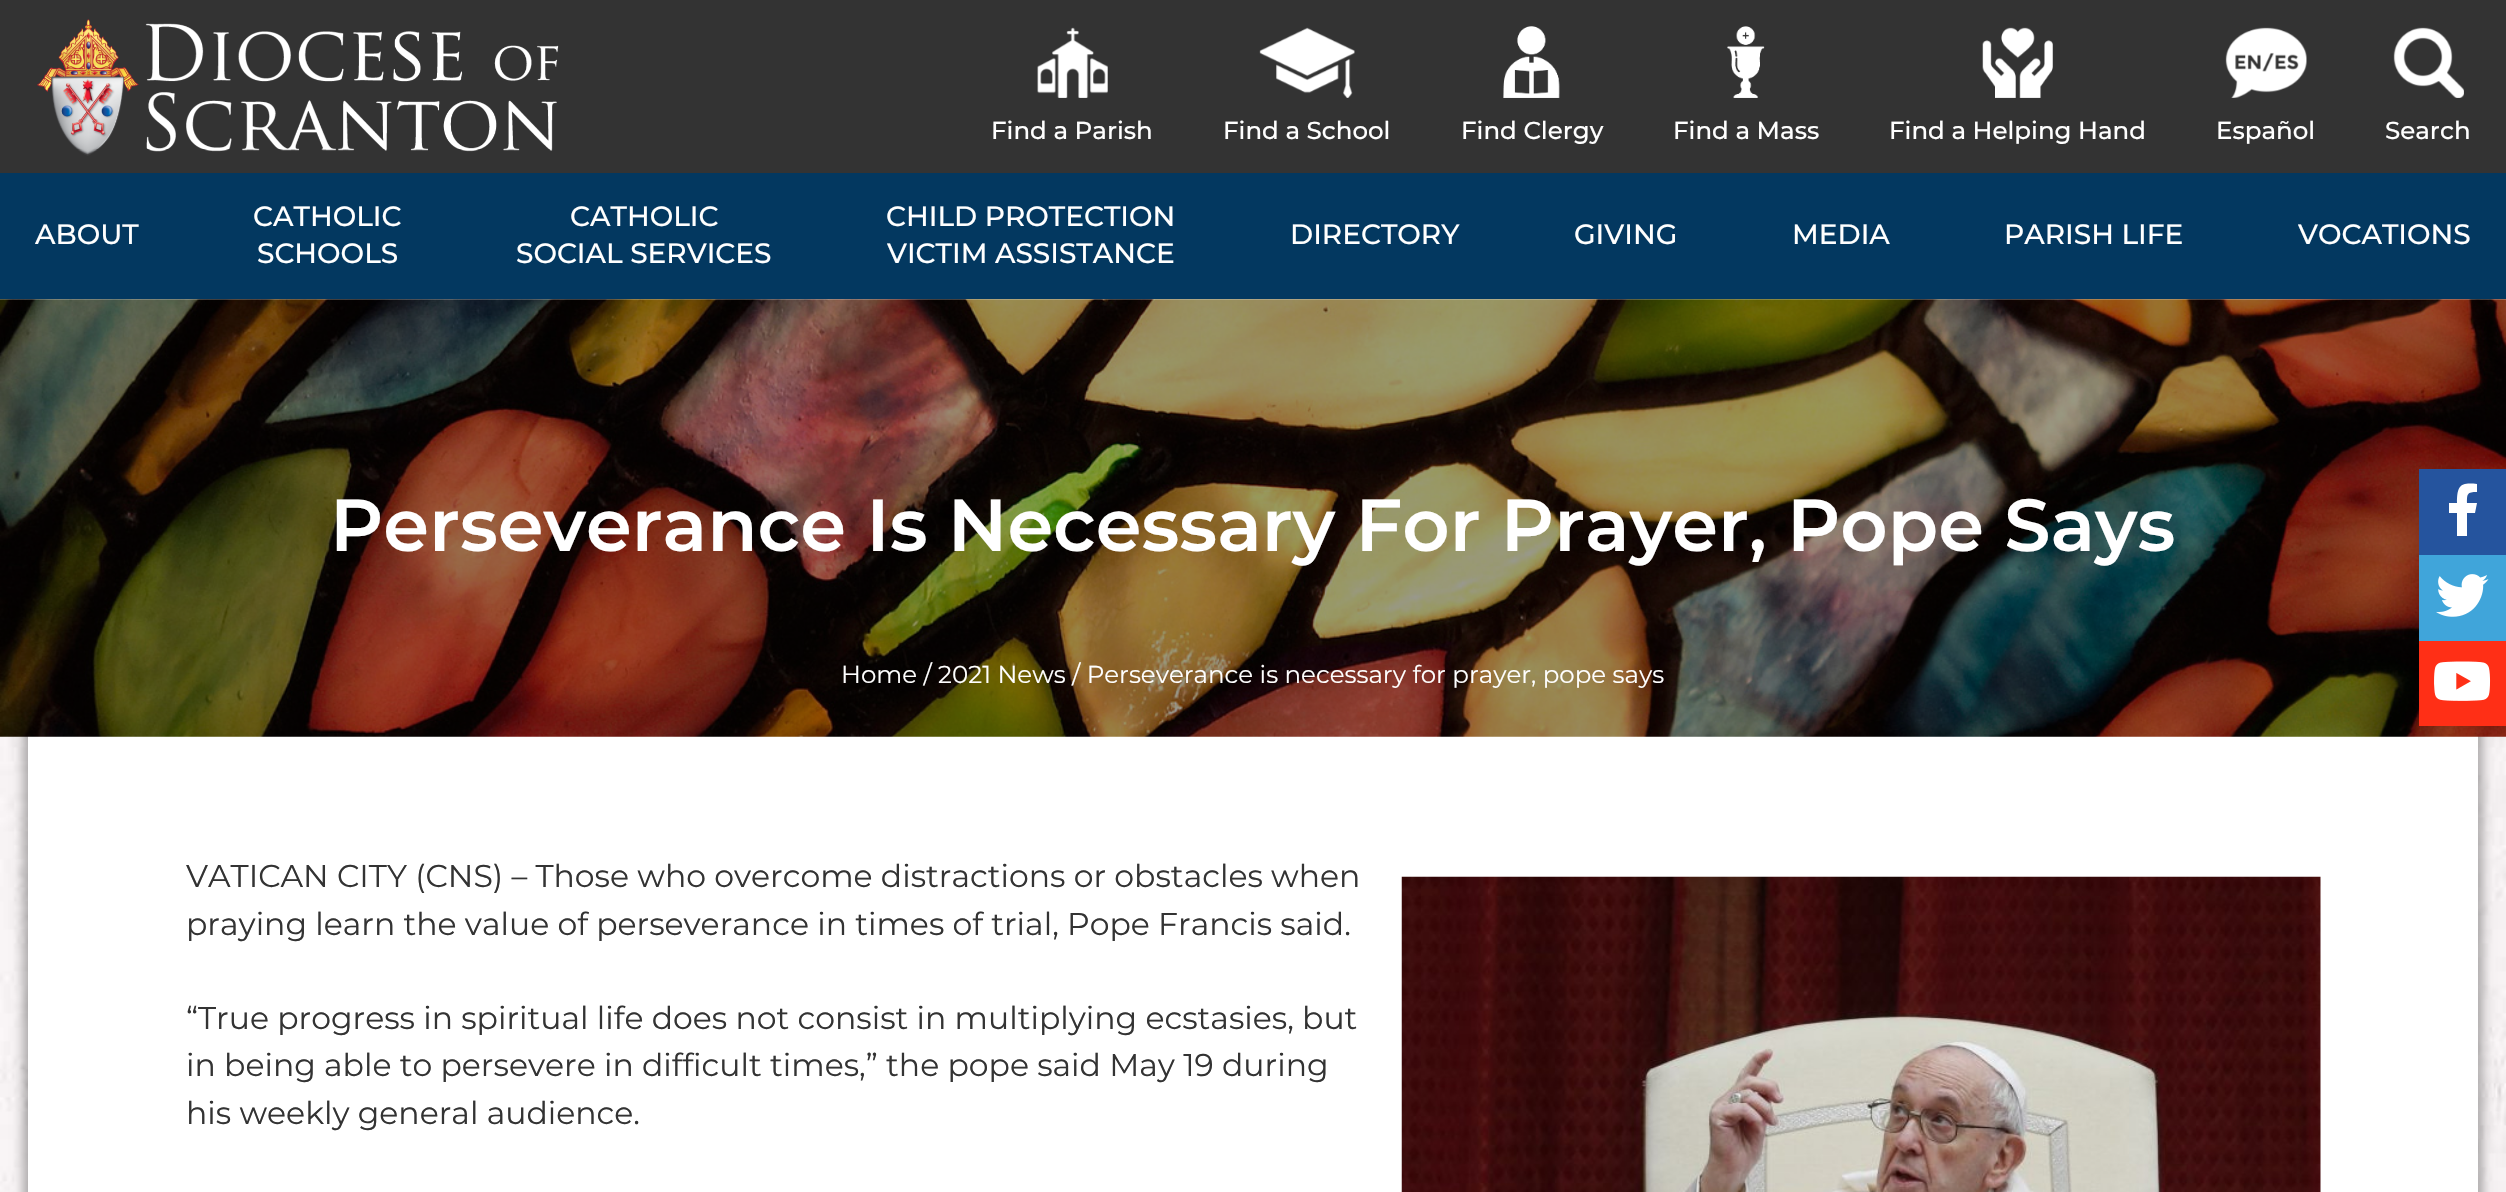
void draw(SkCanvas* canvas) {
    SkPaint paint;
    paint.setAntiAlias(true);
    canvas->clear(0xFFFFFFFF);
    paint.setColor(0xFF333333);
    canvas->drawRect(SkRect::MakeXYWH(0, 0, 2506, 173), paint);
    canvas->drawImageRect(SkImages::DeferredFromEncodedData(SkData::MakeFromFileName("img1.png")), SkRect::MakeXYWH(37, 19, 522, 137), SkSamplingOptions());
    canvas->drawImageRect(SkImages::DeferredFromEncodedData(SkData::MakeFromFileName("img2.png")), SkRect::MakeXYWH(1037, 27, 71, 71), SkSamplingOptions());
    SkFont font1(fontMgr->matchFamilyStyle("Montserrat", SkFontStyle(500, SkFontStyle::kNormal_Width, SkFontStyle::kUpright_Slant)), 24.5f);
    font1.setSubpixel(true);
    paint.setColor(0xFFFFFFFF);
    canvas->drawString("Find a Parish", 991, 139, font1, paint);
    canvas->drawImageRect(SkImages::DeferredFromEncodedData(SkData::MakeFromFileName("img3.png")), SkRect::MakeXYWH(1259, 27, 96, 71), SkSamplingOptions());
    canvas->drawString("Find a School", 1223, 139, font1, paint);
    canvas->drawImageRect(SkImages::DeferredFromEncodedData(SkData::MakeFromFileName("img4.png")), SkRect::MakeXYWH(1503, 26, 57, 72), SkSamplingOptions());
    canvas->drawString("Find Clergy", 1461, 139, font1, paint);
    canvas->drawImageRect(SkImages::DeferredFromEncodedData(SkData::MakeFromFileName("img5.png")), SkRect::MakeXYWH(1727, 26, 38, 72), SkSamplingOptions());
    canvas->drawString("Find a Mass", 1673, 139, font1, paint);
    canvas->drawImageRect(SkImages::DeferredFromEncodedData(SkData::MakeFromFileName("img6.png")), SkRect::MakeXYWH(1982, 27, 71, 71), SkSamplingOptions());
    canvas->drawString("Find a Helping Hand", 1889, 139, font1, paint);
    canvas->drawImageRect(SkImages::DeferredFromEncodedData(SkData::MakeFromFileName("img7.png")), SkRect::MakeXYWH(2225, 27, 82, 71), SkSamplingOptions());
    canvas->drawString("Español", 2216, 139, font1, paint);
    canvas->drawImageRect(SkImages::DeferredFromEncodedData(SkData::MakeFromFileName("img8.png")), SkRect::MakeXYWH(2393, 27, 71, 71), SkSamplingOptions());
    canvas->drawString("Search", 2385, 139, font1, paint);
    paint.setColor(0xFF033860);
    canvas->drawRect(SkRect::MakeXYWH(0, 173, 2506, 126), paint);
    SkFont font2(fontMgr->matchFamilyStyle("Montserrat", SkFontStyle(500, SkFontStyle::kNormal_Width, SkFontStyle::kUpright_Slant)), 28);
    font2.setSubpixel(true);
    paint.setColor(0xFFFFFFFF);
    canvas->drawString("ABOUT", 35, 244, font2, paint);
    canvas->drawString("CATHOLIC", 253, 226, font2, paint);
    canvas->drawString("SCHOOLS", 257, 263, font2, paint);
    canvas->drawString("CATHOLIC", 570, 226, font2, paint);
    canvas->drawString("SOCIAL SERVICES", 516, 263, font2, paint);
    canvas->drawString("CHILD PROTECTION", 886, 226, font2, paint);
    canvas->drawString("VICTIM ASSISTANCE", 887, 263, font2, paint);
    canvas->drawString("DIRECTORY", 1290, 244, font2, paint);
    canvas->drawString("GIVING", 1574, 244, font2, paint);
    canvas->drawString("MEDIA", 1792, 244, font2, paint);
    canvas->drawString("PARISH LIFE", 2004, 244, font2, paint);
    canvas->drawString("VOCATIONS", 2298, 244, font2, paint);
    canvas->drawImageRect(SkImages::DeferredFromEncodedData(SkData::MakeFromFileName("img9.png")), SkRect::MakeXYWH(0, 299, 2506, 893), SkSamplingOptions());
    paint.setColor(0x4D000000);
    paint.setMaskFilter(SkMaskFilter::MakeBlur(kNormal_SkBlurStyle, 5));
    canvas->drawRect(SkRect::MakeXYWH(23, 719, 2460, 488), paint);
    paint.setMaskFilter(nullptr);
    paint.setColor(0xFFFFFFFF);
    canvas->drawRect(SkRect::MakeXYWH(28, 736, 2450, 456), paint);
    canvas->drawImageRect(SkImages::DeferredFromEncodedData(SkData::MakeFromFileName("img10.png")), SkRect::MakeXYWH(0, 299, 2506, 438), SkSamplingOptions());
    SkFont font3(fontMgr->matchFamilyStyle("Montserrat", SkFontStyle(600, SkFontStyle::kNormal_Width, SkFontStyle::kUpright_Slant)), 73.5f);
    font3.setSubpixel(true);
    canvas->drawString("Perseverance Is Necessary For Prayer, Pope Says", 330, 551, font3, paint);
    SkFont font4(fontMgr->matchFamilyStyle("Montserrat", SkFontStyle::Normal()), 24.5f);
    font4.setSubpixel(true);
    canvas->drawString("Home / 2021 News / Perseverance is necessary for prayer, pope says", 841, 683, font4, paint);
    SkFont font5(fontMgr->matchFamilyStyle("Montserrat", SkFontStyle::Normal()), 31.5f);
    font5.setSubpixel(true);
    paint.setColor(0xFF333333);
    canvas->drawString("VATICAN CITY (CNS) – Those who overcome distractions or obstacles when", 186, 887, font5, paint);
    canvas->drawString("praying learn the value of perseverance in times of trial, Pope Francis said.", 186, 935, font5, paint);
    canvas->drawImageRect(SkImages::DeferredFromEncodedData(SkData::MakeFromFileName("img11.png")), SkRect::MakeXYWH(1401, 876, 920, 316), SkSamplingOptions());
    canvas->drawString("“True progress in spiritual life does not consist in multiplying ecstasies, but", 186, 1029, font5, paint);
    canvas->drawString("in being able to persevere in difficult times,” the pope said May 19 during", 186, 1076, font5, paint);
    canvas->drawString("his weekly general audience.", 186, 1124, font5, paint);
    paint.setColor(0xFF25549E);
    canvas->drawRect(SkRect::MakeXYWH(2419, 469, 87, 86), paint);
    paint.setColor(0xFFFFFFFF);
    canvas->drawPath(SkPathBuilder().moveTo(2475, 513).lineTo(2467, 513).lineTo(2467, 536).lineTo(2457, 536).lineTo(2457, 513).lineTo(2449, 513).lineTo(2449, 503).lineTo(2457, 503).cubicTo(2457, 486, 2460, 482, 2477, 484).lineTo(2477, 492).cubicTo(2467, 492, 2467, 494, 2467, 503).lineTo(2477, 503).close().detach(), paint);
    paint.setColor(0xFF40A5DA);
    canvas->drawRect(SkRect::MakeXYWH(2419, 555, 87, 86), paint);
    canvas->drawImageRect(SkImages::DeferredFromEncodedData(SkData::MakeFromFileName("img12.png")), SkRect::MakeXYWH(2436, 574, 53, 43), SkSamplingOptions());
    paint.setColor(0xFFFF2F16);
    canvas->drawRect(SkRect::MakeXYWH(2419, 641, 87, 85), paint);
    canvas->drawImageRect(SkImages::DeferredFromEncodedData(SkData::MakeFromFileName("img13.png")), SkRect::MakeXYWH(2434, 661, 57, 40), SkSamplingOptions());
}
